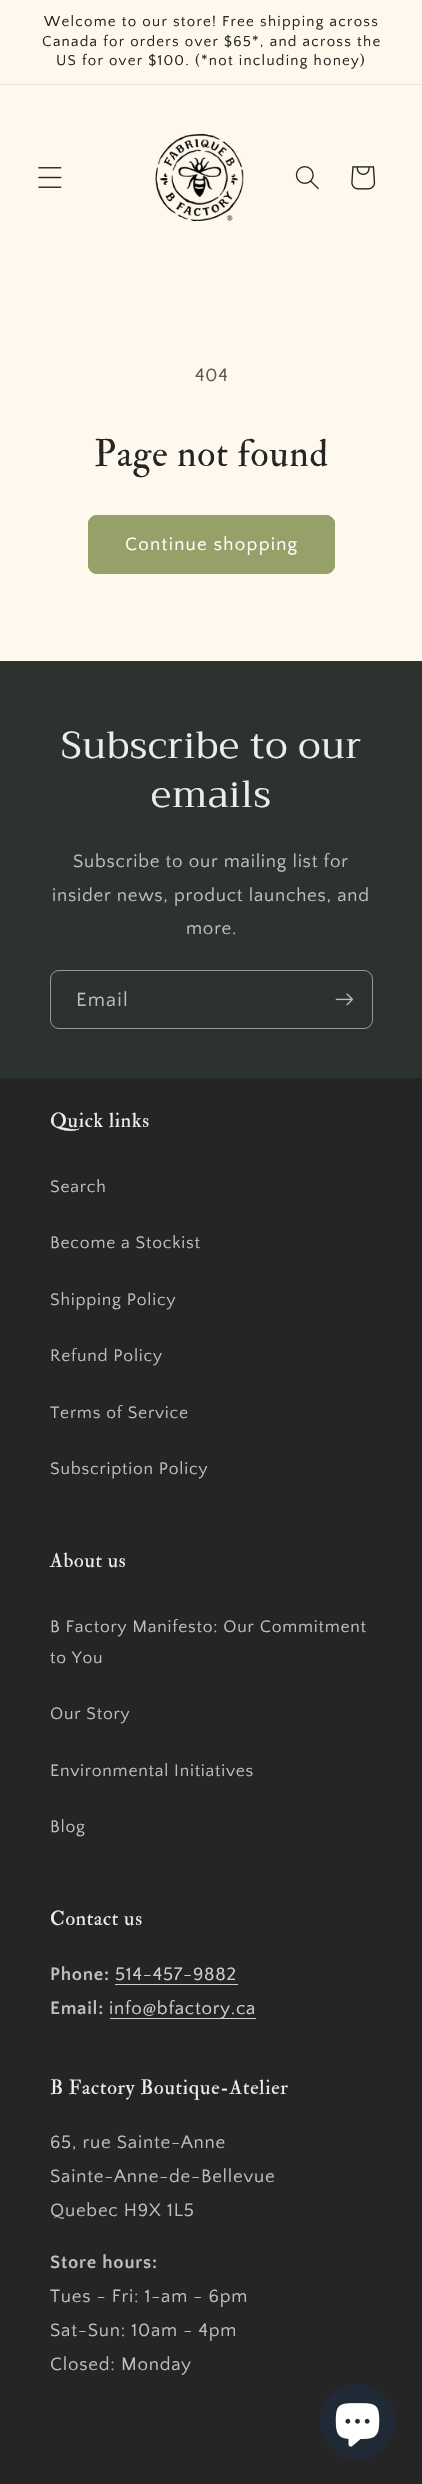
void draw(SkCanvas* canvas) {
    SkPaint paint;
    paint.setAntiAlias(true);
    auto spacedText = [&](const char* s, float x, float y, const SkFont& font, const SkPaint& ink, float letter, float word) {
        std::vector<SkGlyphID> glyphs(font.countText(s, strlen(s), SkTextEncoding::kUTF8));
        std::vector<float> xs(glyphs.size());
        font.textToGlyphs(s, strlen(s), SkTextEncoding::kUTF8, glyphs);
        font.getXPos(glyphs, xs, x);
        float extra = 0;
        for (size_t i = 0; i < glyphs.size(); i++) {
            xs[i] += extra;
            extra += letter + word * (glyphs[i] == font.unicharToGlyph(' '));
        }
        canvas->drawTextBlob(SkTextBlob::MakeFromPosHGlyphs(glyphs, xs, y, font), 0, 0, ink);
    };
    canvas->clear(0xFFFFF8EC);
    paint.setColor(0xFFEEE7DC);
    canvas->drawRect(SkRect::MakeXYWH(0, 84, 422, 1), paint);
    SkFont font1(fontMgr->matchFamilyStyle("Quattrocento Sans", SkFontStyle::Normal()), 15);
    font1.setSubpixel(true);
    paint.setColor(0xFF252525);
    spacedText("Welcome to our store! Free shipping across", 44, 26, font1, paint, 1.25f, 0);
    spacedText("Canada for orders over $65*, and across the", 42, 46, font1, paint, 1.25f, 0);
    spacedText("US for over $100. (*not including honey)", 56, 65, font1, paint, 1.25f, 0);
    canvas->drawImageRect(SkImages::DeferredFromEncodedData(SkData::MakeFromFileName("img1.png")), SkRect::MakeXYWH(38, 167, 24, 21), SkSamplingOptions());
    canvas->drawImageRect(SkImages::DeferredFromEncodedData(SkData::MakeFromFileName("img2.png")), SkRect::MakeXYWH(155, 133, 89, 89), SkSamplingOptions());
    canvas->drawImageRect(SkImages::DeferredFromEncodedData(SkData::MakeFromFileName("img3.png")), SkRect::MakeXYWH(295, 166, 24, 24), SkSamplingOptions());
    canvas->drawImageRect(SkImages::DeferredFromEncodedData(SkData::MakeFromFileName("img4.png")), SkRect::MakeXYWH(351, 166, 25, 24), SkSamplingOptions());
    SkFont font2(fontMgr->matchFamilyStyle("Quattrocento Sans", SkFontStyle::Normal()), 18.75f);
    font2.setSubpixel(true);
    paint.setColor(0xFF5C5A57);
    spacedText("404", 195, 381, font2, paint, 0.75f, 0);
    SkFont font3(fontMgr->matchFamilyStyle("IM FELL Double Pica", SkFontStyle::Normal()), 37.5f);
    font3.setSubpixel(true);
    paint.setColor(0xFF252525);
    spacedText("Page not found", 94, 466, font3, paint, 0.75f, 0);
    paint.setColor(0xFF95A168);
    canvas->drawRoundRect(SkRect::MakeXYWH(88, 515, 247, 59), 9, 9, paint);
    paint.setStyle(SkPaint::kStroke_Style);
    paint.setStrokeWidth(1);
    canvas->drawRoundRect(SkRect::MakeXYWH(88.5f, 515.5f, 246, 58), 8.5f, 8.5f, paint);
    paint.setStyle(SkPaint::kFill_Style);
    paint.setColor(0xFFFFFFFF);
    spacedText("Continue shopping", 125, 550, font2, paint, 1.25f, 0);
    paint.setColor(0xFF2C332F);
    canvas->drawRect(SkRect::MakeXYWH(0, 661, 422, 417), paint);
    SkFont font4(fontMgr->matchFamilyStyle("Trirong", SkFontStyle::Normal()), 37.5f);
    font4.setSubpixel(true);
    paint.setColor(0xFFEFECEC);
    spacedText("Subscribe to our", 61, 758, font4, paint, 0.75f, 0);
    spacedText("emails", 151, 807, font4, paint, 0.75f, 0);
    paint.setColor(0xFFBEBEBD);
    spacedText("Subscribe to our mailing list for", 73, 867, font2, paint, 0.75f, 0);
    spacedText("insider news, product launches, and", 52, 901, font2, paint, 0.75f, 0);
    spacedText("more.", 186, 934, font2, paint, 0.75f, 0);
    paint.setStyle(SkPaint::kStroke_Style);
    paint.setColor(0xFF979997);
    canvas->drawRoundRect(SkRect::MakeXYWH(50.5f, 970.5f, 322, 58), 8.5f, 8.5f, paint);
    SkFont font5(fontMgr->matchFamilyStyle("Quattrocento Sans", SkFontStyle::Normal()), 20);
    font5.setSubpixel(true);
    paint.setStyle(SkPaint::kFill_Style);
    paint.setColor(0xFFBEBEBD);
    spacedText("Email", 76, 1006, font5, paint, 1.25f, 0);
    canvas->drawImageRect(SkImages::DeferredFromEncodedData(SkData::MakeFromFileName("img5.png")), SkRect::MakeXYWH(335, 993, 18, 13), SkSamplingOptions());
    paint.setColor(0xFF252525);
    canvas->drawRect(SkRect::MakeXYWH(0, 1078, 422, 1406), paint);
    SkFont font6(fontMgr->matchFamilyStyle("IM FELL Double Pica", SkFontStyle::Normal()), 20);
    font6.setSubpixel(true);
    paint.setColor(0xFFEFECEC);
    spacedText("Quick links", 50, 1127, font6, paint, 0.75f, 0);
    SkFont font7(fontMgr->matchFamilyStyle("Quattrocento Sans", SkFontStyle::Normal()), 17.5f);
    font7.setSubpixel(true);
    paint.setColor(0xFFBEBEBD);
    spacedText("Search", 50, 1192, font7, paint, 0.75f, 0);
    spacedText("Become a Stockist", 50, 1248, font7, paint, 0.75f, 0);
    spacedText("Shipping Policy", 50, 1305, font7, paint, 0.75f, 0);
    spacedText("Refund Policy", 50, 1361, font7, paint, 0.75f, 0);
    spacedText("Terms of Service", 50, 1418, font7, paint, 0.75f, 0);
    spacedText("Subscription Policy", 50, 1474, font7, paint, 0.75f, 0);
    paint.setColor(0xFFEFECEC);
    spacedText("About us", 50, 1567, font6, paint, 0.75f, 0);
    paint.setColor(0xFFBEBEBD);
    spacedText("B Factory Manifesto: Our Commitment", 50, 1632, font7, paint, 0.75f, 0);
    spacedText("to You", 50, 1663, font7, paint, 0.75f, 0);
    spacedText("Our Story", 50, 1719, font7, paint, 0.75f, 0);
    spacedText("Environmental Initiatives", 50, 1776, font7, paint, 0.75f, 0);
    spacedText("Blog", 50, 1832, font7, paint, 0.75f, 0);
    paint.setColor(0xFFEFECEC);
    spacedText("Contact us", 50, 1925, font6, paint, 0.75f, 0);
    SkFont font8(fontMgr->matchFamilyStyle("Quattrocento Sans", SkFontStyle::Bold()), 18.75f);
    font8.setSubpixel(true);
    paint.setColor(0xFFBEBEBD);
    spacedText("Phone:", 50, 1980, font8, paint, 0.75f, 0);
    paint.setColor(0xFFD1CECE);
    spacedText("514-457-9882", 115, 1980, font2, paint, 0.75f, 0);
    canvas->drawRect(SkRect::MakeXYWH(115, 1984, 123, 1), paint);
    paint.setColor(0xFFBEBEBD);
    spacedText("Email:", 50, 2014, font8, paint, 0.75f, 0);
    paint.setColor(0xFFD1CECE);
    canvas->drawRect(SkRect::MakeXYWH(110, 2018, 146, 1), paint);
    spacedText("info@bfactory.ca", 109, 2014, font2, paint, 0.75f, 0);
    paint.setColor(0xFFEFECEC);
    spacedText("B Factory Boutique-Atelier", 50, 2094, font6, paint, 0.75f, 0);
    paint.setColor(0xFFBEBEBD);
    spacedText("65, rue Sainte-Anne", 50, 2148, font2, paint, 0.75f, 0);
    spacedText("Sainte-Anne-de-Bellevue", 50, 2182, font2, paint, 0.75f, 0);
    spacedText("Quebec H9X 1L5", 50, 2216, font2, paint, 0.75f, 0);
    spacedText("Store hours:", 50, 2268, font8, paint, 0.75f, 0);
    spacedText("Tues - Fri: 1-am - 6pm", 50, 2302, font2, paint, 0.75f, 0);
    spacedText("Sat-Sun: 10am - 4pm", 50, 2336, font2, paint, 0.75f, 0);
    spacedText("Closed: Monday", 50, 2370, font2, paint, 0.75f, 0);
    paint.setColor(0xFF202A36);
    canvas->drawCircle(357.5f, 2421.5f, 37.5f, paint);
    canvas->drawImageRect(SkImages::DeferredFromEncodedData(SkData::MakeFromFileName("img6.png")), SkRect::MakeXYWH(335, 2403, 45, 44), SkSamplingOptions());
}
